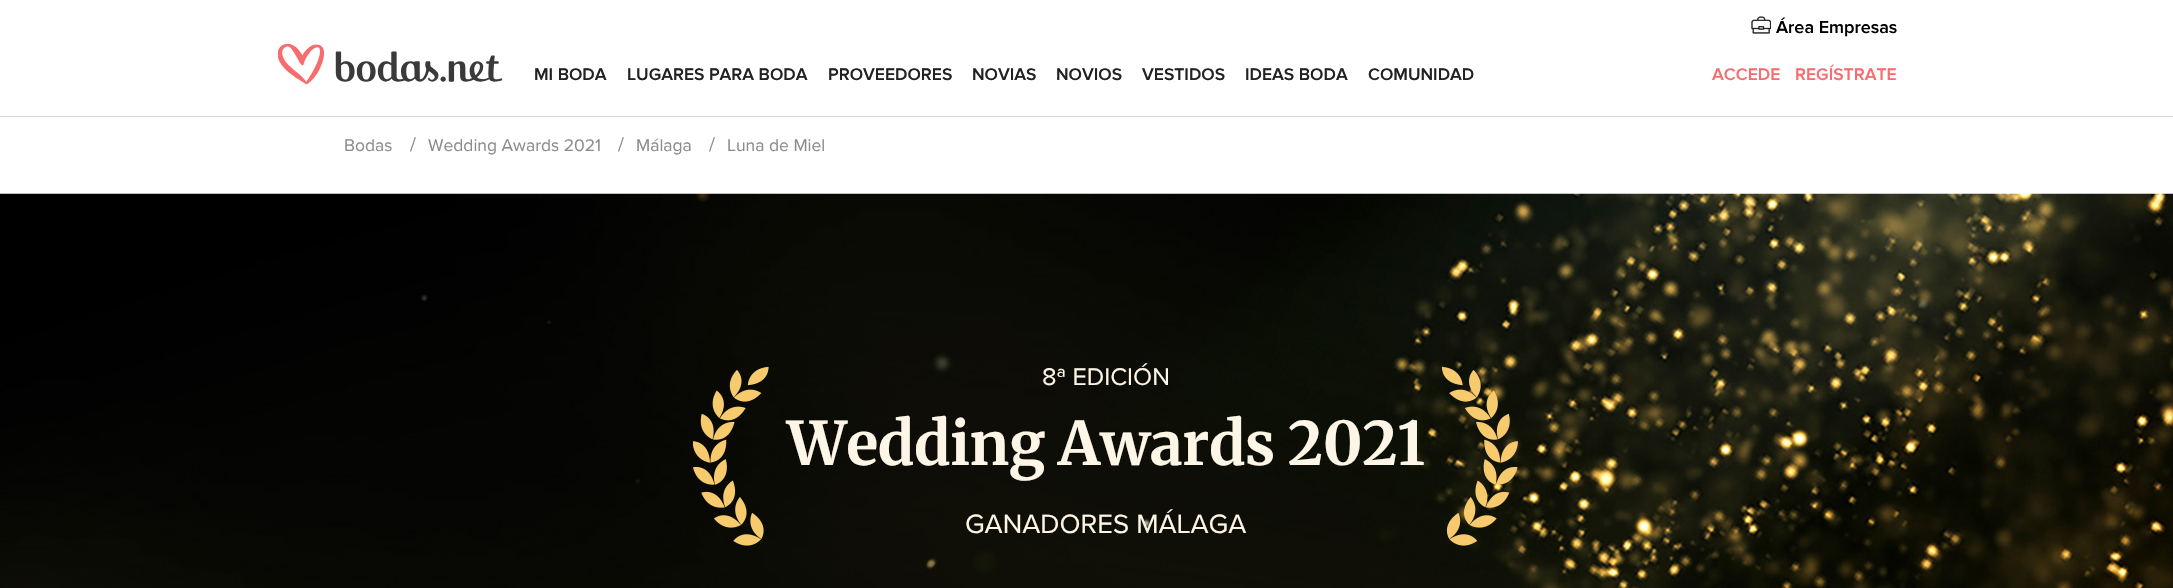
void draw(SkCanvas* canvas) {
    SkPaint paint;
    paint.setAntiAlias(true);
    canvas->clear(0xFFFFFFFF);
    canvas->drawImageRect(SkImages::DeferredFromEncodedData(SkData::MakeFromFileName("img1.png")), SkRect::MakeXYWH(1751, 16, 20, 18), SkSamplingOptions());
    SkFont font1(fontMgr->matchFamilyStyle("Proxima Nova", SkFontStyle(600, SkFontStyle::kNormal_Width, SkFontStyle::kUpright_Slant)), 18);
    font1.setSubpixel(true);
    paint.setColor(0xFF000000);
    canvas->drawString("Área Empresas", 1776, 33, font1, paint);
    canvas->drawImageRect(SkImages::DeferredFromEncodedData(SkData::MakeFromFileName("img2.png")), SkRect::MakeXYWH(278, 44, 225, 41), SkSamplingOptions());
    SkFont font2(fontMgr->matchFamilyStyle("Proxima Nova", SkFontStyle(600, SkFontStyle::kNormal_Width, SkFontStyle::kUpright_Slant)), 17.5f);
    font2.setSubpixel(true);
    paint.setColor(0xFF222222);
    canvas->drawString("MI BODA", 534, 80, font2, paint);
    canvas->drawString("LUGARES PARA BODA", 627, 80, font2, paint);
    canvas->drawString("PROVEEDORES", 828, 80, font2, paint);
    canvas->drawString("NOVIAS", 972, 80, font2, paint);
    canvas->drawString("NOVIOS", 1056, 80, font2, paint);
    canvas->drawString("VESTIDOS", 1142, 80, font2, paint);
    canvas->drawString("IDEAS BODA", 1245, 80, font2, paint);
    canvas->drawString("COMUNIDAD", 1368, 80, font2, paint);
    paint.setColor(0xFFF76C6F);
    canvas->drawString("ACCEDE", 1712, 80, font2, paint);
    canvas->drawString("REGÍSTRATE", 1795, 80, font2, paint);
    paint.setColor(0xFFD9D9D9);
    canvas->drawRect(SkRect::MakeXYWH(0, 116, 2173, 1), paint);
    SkFont font3(fontMgr->matchFamilyStyle("Proxima Nova", SkFontStyle::Normal()), 17.5f);
    font3.setSubpixel(true);
    paint.setColor(0xFF8C8C8C);
    canvas->drawString("Bodas", 344, 151, font3, paint);
    SkFont font4(fontMgr->matchFamilyStyle("Proxima Nova", SkFontStyle::Normal()), 20);
    font4.setSubpixel(true);
    canvas->drawString("/", 410, 151, font4, paint);
    canvas->drawString("Wedding Awards 2021", 428, 151, font3, paint);
    canvas->drawString("/", 618, 151, font4, paint);
    canvas->drawString("Málaga", 636, 151, font3, paint);
    canvas->drawString("/", 709, 151, font4, paint);
    canvas->drawString("Luna de Miel", 727, 151, font3, paint);
    canvas->drawImageRect(SkImages::DeferredFromEncodedData(SkData::MakeFromFileName("img3.png")), SkRect::MakeXYWH(0, 193, 2173, 395), SkSamplingOptions());
    canvas->drawImageRect(SkImages::DeferredFromEncodedData(SkData::MakeFromFileName("img4.png")), SkRect::MakeXYWH(693, 366, 76, 180), SkSamplingOptions());
    SkFont font5(fontMgr->matchFamilyStyle("Proxima Nova", SkFontStyle::Normal()), 25);
    font5.setSubpixel(true);
    paint.setColor(0xFFFDF5E6);
    canvas->drawString("8ª EDICIÓN", 1042, 385, font5, paint);
    canvas->drawImageRect(SkImages::DeferredFromEncodedData(SkData::MakeFromFileName("img5.png")), SkRect::MakeXYWH(1441, 366, 77, 180), SkSamplingOptions());
    SkFont font6(fontMgr->matchFamilyStyle("Merriweather", SkFontStyle::Bold()), 60);
    font6.setSubpixel(true);
    canvas->drawString("Wedding Awards 2021", 787, 465, font6, paint);
    SkFont font7(fontMgr->matchFamilyStyle("Proxima Nova", SkFontStyle::Normal()), 27.5f);
    font7.setSubpixel(true);
    canvas->drawString("GANADORES MÁLAGA", 965, 533, font7, paint);
}
